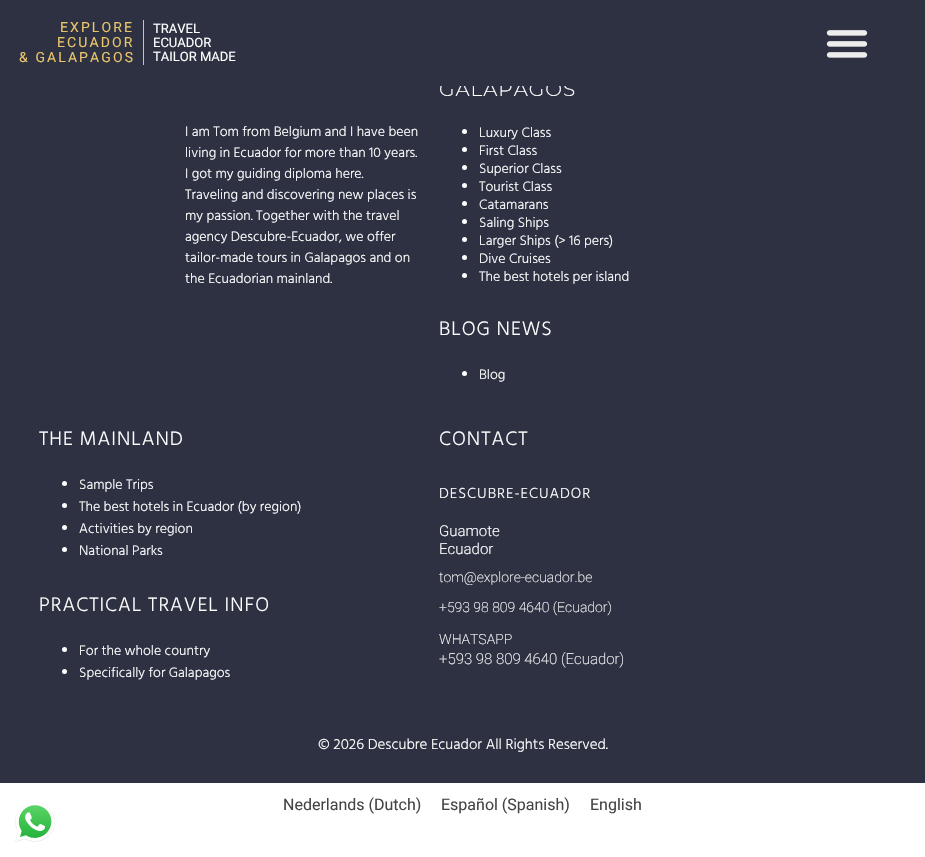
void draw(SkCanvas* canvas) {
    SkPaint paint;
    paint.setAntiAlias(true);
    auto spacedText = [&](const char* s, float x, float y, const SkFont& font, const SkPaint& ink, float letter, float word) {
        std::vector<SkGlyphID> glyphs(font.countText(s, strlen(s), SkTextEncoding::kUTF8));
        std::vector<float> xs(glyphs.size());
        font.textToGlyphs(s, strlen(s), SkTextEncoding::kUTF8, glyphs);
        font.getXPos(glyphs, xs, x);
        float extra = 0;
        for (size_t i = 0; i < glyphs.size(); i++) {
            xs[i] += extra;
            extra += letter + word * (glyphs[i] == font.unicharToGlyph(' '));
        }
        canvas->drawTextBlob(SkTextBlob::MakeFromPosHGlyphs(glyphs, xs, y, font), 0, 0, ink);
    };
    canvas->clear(0xFFFFFFFF);
    paint.setColor(0xFF2D3142);
    canvas->drawRect(SkRect::MakeXYWH(0, 86, 925, 697), paint);
    SkFont font1(fontMgr->matchFamilyStyle("Montserrat", SkFontStyle(300, SkFontStyle::kNormal_Width, SkFontStyle::kUpright_Slant)), 20);
    font1.setSubpixel(true);
    paint.setColor(0xFFFFFFFF);
    spacedText("GALAPAGOS", 439, 96, font1, paint, 1, 0);
    paint.setColor(0xFF2D3142);
    canvas->drawRect(SkRect::MakeXYWH(0, 0, 925, 86), paint);
    paint.setColor(0xFFE9C46A);
    canvas->drawRect(SkRect::MakeXYWH(143, 20, 1, 45), paint);
    SkFont font2(fontMgr->matchFamilyStyle("Roboto", SkFontStyle::Normal()), 14);
    font2.setSubpixel(true);
    spacedText("EXPLORE", 60, 32, font2, paint, 2.1f, 0);
    spacedText("ECUADOR", 57, 47, font2, paint, 2.1f, 0);
    spacedText("& GALAPAGOS", 19, 62, font2, paint, 2.1f, 0);
    SkFont font3(fontMgr->matchFamilyStyle("Roboto", SkFontStyle::Normal()), 13);
    font3.setSubpixel(true);
    paint.setColor(0xFFFFFFFF);
    canvas->drawString("TRAVEL", 153, 33, font3, paint);
    canvas->drawString("ECUADOR", 153, 47, font3, paint);
    canvas->drawString("TAILOR MADE", 153, 61, font3, paint);
    canvas->drawImageRect(SkImages::DeferredFromEncodedData(SkData::MakeFromFileName("img1.png")), SkRect::MakeXYWH(826, 30, 42, 28), SkSamplingOptions());
    SkFont font4(fontMgr->matchFamilyStyle("Hind Madurai", SkFontStyle(300, SkFontStyle::kNormal_Width, SkFontStyle::kUpright_Slant)), 14);
    font4.setSubpixel(true);
    canvas->drawString("I am Tom from Belgium and I have been", 185, 136, font4, paint);
    canvas->drawString("living in Ecuador for more than 10 years.", 185, 157, font4, paint);
    canvas->drawString("I got my guiding diploma here.", 185, 178, font4, paint);
    canvas->drawString("Traveling and discovering new places is", 185, 199, font4, paint);
    canvas->drawString("my passion. Together with the travel", 185, 220, font4, paint);
    canvas->drawString("agency Descubre-Ecuador, we offer", 185, 241, font4, paint);
    canvas->drawString("tailor-made tours in Galapagos and on", 185, 262, font4, paint);
    canvas->drawString("the Ecuadorian mainland.", 185, 283, font4, paint);
    canvas->drawCircle(464.5f, 131.5f, 2.5f, paint);
    canvas->drawString("Luxury Class", 479, 137, font4, paint);
    canvas->drawCircle(464.5f, 149.5f, 2.5f, paint);
    canvas->drawString("First Class", 479, 155, font4, paint);
    canvas->drawCircle(464.5f, 167.5f, 2.5f, paint);
    canvas->drawString("Superior Class", 479, 173, font4, paint);
    canvas->drawCircle(464.5f, 185.5f, 2.5f, paint);
    canvas->drawString("Tourist Class", 479, 191, font4, paint);
    canvas->drawCircle(464.5f, 203.5f, 2.5f, paint);
    canvas->drawString("Catamarans", 479, 209, font4, paint);
    canvas->drawCircle(464.5f, 221.5f, 2.5f, paint);
    canvas->drawString("Saling Ships", 479, 227, font4, paint);
    canvas->drawCircle(464.5f, 239.5f, 2.5f, paint);
    canvas->drawString("Larger Ships (> 16 pers)", 479, 245, font4, paint);
    canvas->drawCircle(464.5f, 257.5f, 2.5f, paint);
    canvas->drawString("Dive Cruises", 479, 263, font4, paint);
    canvas->drawCircle(464.5f, 275.5f, 2.5f, paint);
    canvas->drawString("The best hotels per island", 479, 281, font4, paint);
    SkFont font5(fontMgr->matchFamilyStyle("Hind Madurai", SkFontStyle(300, SkFontStyle::kNormal_Width, SkFontStyle::kUpright_Slant)), 20);
    font5.setSubpixel(true);
    spacedText("BLOG NEWS", 439, 335, font5, paint, 1, 0);
    canvas->drawCircle(464.5f, 373.5f, 2.5f, paint);
    canvas->drawString("Blog", 479, 379, font4, paint);
    spacedText("THE MAINLAND", 39, 445, font5, paint, 1, 0);
    canvas->drawCircle(64.5f, 483.5f, 2.5f, paint);
    canvas->drawString("Sample Trips", 79, 489, font4, paint);
    canvas->drawCircle(64.5f, 505.5f, 2.5f, paint);
    canvas->drawString("The best hotels in Ecuador (by region)", 79, 511, font4, paint);
    canvas->drawCircle(64.5f, 527.5f, 2.5f, paint);
    canvas->drawString("Activities by region", 79, 533, font4, paint);
    canvas->drawCircle(64.5f, 549.5f, 2.5f, paint);
    canvas->drawString("National Parks", 79, 555, font4, paint);
    spacedText("PRACTICAL TRAVEL INFO", 39, 611, font5, paint, 1, 0);
    canvas->drawCircle(64.5f, 649.5f, 2.5f, paint);
    canvas->drawString("For the whole country", 79, 655, font4, paint);
    canvas->drawCircle(64.5f, 671.5f, 2.5f, paint);
    canvas->drawString("Specifically for Galapagos", 79, 677, font4, paint);
    spacedText("CONTACT", 439, 445, font5, paint, 1, 0);
    SkFont font6(fontMgr->matchFamilyStyle("Hind Madurai", SkFontStyle(300, SkFontStyle::kNormal_Width, SkFontStyle::kUpright_Slant)), 15);
    font6.setSubpixel(true);
    spacedText("DESCUBRE-ECUADOR", 439, 498, font6, paint, 1, 0);
    SkFont font7(fontMgr->matchFamilyStyle("Roboto", SkFontStyle(300, SkFontStyle::kNormal_Width, SkFontStyle::kUpright_Slant)), 15);
    font7.setSubpixel(true);
    canvas->drawString("Guamote", 439, 536, font7, paint);
    canvas->drawString("Ecuador", 439, 554, font7, paint);
    SkFont font8(fontMgr->matchFamilyStyle("Roboto", SkFontStyle(200, SkFontStyle::kNormal_Width, SkFontStyle::kUpright_Slant)), 14);
    font8.setSubpixel(true);
    canvas->drawString("tom@explore-ecuador.be", 439, 582, font8, paint);
    canvas->drawString("+593 98 809 4640 (Ecuador)", 439, 612, font8, paint);
    canvas->drawString("WHATSAPP", 439, 644, font8, paint);
    SkFont font9(fontMgr->matchFamilyStyle("Roboto", SkFontStyle(200, SkFontStyle::kNormal_Width, SkFontStyle::kUpright_Slant)), 15);
    font9.setSubpixel(true);
    canvas->drawString("+593 98 809 4640 (Ecuador)", 439, 664, font9, paint);
    canvas->drawString("© 2026 Descubre Ecuador All Rights Reserved.", 318, 749, font6, paint);
    canvas->drawImageRect(SkImages::DeferredFromEncodedData(SkData::MakeFromFileName("img2.png")), SkRect::MakeXYWH(15, 802, 40, 40), SkSamplingOptions());
    SkFont font10(fontMgr->matchFamilyStyle("Roboto", SkFontStyle::Normal()), 16);
    font10.setSubpixel(true);
    paint.setColor(0xFF444444);
    canvas->drawString("Nederlands (Dutch)", 283, 810, font10, paint);
    canvas->drawString("Español (Spanish)", 441, 810, font10, paint);
    canvas->drawString("English", 590, 810, font10, paint);
}
